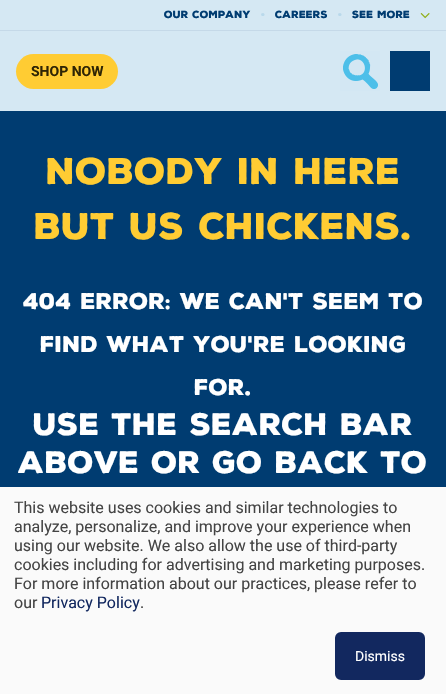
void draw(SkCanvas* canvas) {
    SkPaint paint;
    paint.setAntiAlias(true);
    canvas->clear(0xFF003C71);
    paint.setColor(0xFFD5E8F3);
    canvas->drawRect(SkRect::MakeXYWH(0, 0, 446, 111), paint);
    paint.setColor(0xFFC5D9E8);
    canvas->drawRect(SkRect::MakeXYWH(0, 30, 446, 1), paint);
    SkFont font1(fontMgr->matchFamilyStyle("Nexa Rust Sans", SkFontStyle(900, SkFontStyle::kNormal_Width, SkFontStyle::kUpright_Slant)), 10);
    font1.setSubpixel(true);
    paint.setColor(0xFF003C71);
    canvas->drawString("OUR COMPANY", 164, 18, font1, paint);
    paint.setColor(0xFFB9D9EB);
    canvas->drawString("•", 261, 18, font1, paint);
    paint.setColor(0xFF003C71);
    canvas->drawString("CAREERS", 275, 18, font1, paint);
    paint.setColor(0xFFB9D9EB);
    canvas->drawString("•", 338, 18, font1, paint);
    paint.setColor(0xFF003C71);
    canvas->drawString("SEE MORE", 352, 18, font1, paint);
    canvas->drawImageRect(SkImages::DeferredFromEncodedData(SkData::MakeFromFileName("img1.png")), SkRect::MakeXYWH(420, 13, 10, 6), SkSamplingOptions());
    paint.setColor(0xFFFFCC33);
    canvas->drawRoundRect(SkRect::MakeXYWH(16, 54, 102, 35), 17.5f, 17.5f, paint);
    SkFont font2(fontMgr->matchFamilyStyle("Roboto", SkFontStyle::Bold()), 14);
    font2.setSubpixel(true);
    paint.setColor(0xFF2F2504);
    canvas->drawString("SHOP NOW", 31, 76, font2, paint);
    paint.setColor(0xFF4DBFE9);
    canvas->drawRect(SkRect::MakeXYWH(343, 54, 35, 35), paint);
    canvas->drawImageRect(SkImages::DeferredFromEncodedData(SkData::MakeFromFileName("img2.png")), SkRect::MakeXYWH(340, 51, 40, 40), SkSamplingOptions());
    paint.setColor(0xFF003C71);
    canvas->drawRect(SkRect::MakeXYWH(390, 51, 40, 40), paint);
    SkFont font3(fontMgr->matchFamilyStyle("Nexa Rust Sans", SkFontStyle(900, SkFontStyle::kNormal_Width, SkFontStyle::kUpright_Slant)), 36);
    font3.setSubpixel(true);
    paint.setColor(0xFFFFCC33);
    canvas->drawString("NOBODY IN HERE", 46, 184, font3, paint);
    canvas->drawString("BUT US CHICKENS.", 34, 239, font3, paint);
    SkFont font4(fontMgr->matchFamilyStyle("Nexa Rust Sans", SkFontStyle(900, SkFontStyle::kNormal_Width, SkFontStyle::kUpright_Slant)), 22);
    font4.setSubpixel(true);
    paint.setColor(0xFFFFFFFF);
    canvas->drawString("404 ERROR: WE CAN'T SEEM TO", 23, 309, font4, paint);
    canvas->drawString("FIND WHAT YOU'RE LOOKING", 40, 352, font4, paint);
    canvas->drawString("FOR.", 194, 395, font4, paint);
    SkFont font5(fontMgr->matchFamilyStyle("Nexa Rust Sans", SkFontStyle(900, SkFontStyle::kNormal_Width, SkFontStyle::kUpright_Slant)), 30);
    font5.setSubpixel(true);
    canvas->drawString("USE THE SEARCH BAR", 33, 435, font5, paint);
    canvas->drawString("ABOVE OR GO BACK TO", 18, 473, font5, paint);
    paint.setColor(0xFFFAFAFA);
    canvas->drawRect(SkRect::MakeXYWH(0, 487, 446, 207), paint);
    SkFont font6(fontMgr->matchFamilyStyle("Roboto", SkFontStyle::Normal()), 16);
    font6.setSubpixel(true);
    paint.setColor(0xFF444444);
    canvas->drawString("This website uses cookies and similar technologies to", 14, 513, font6, paint);
    canvas->drawString("analyze, personalize, and improve your experience when", 14, 532, font6, paint);
    canvas->drawString("using our website. We also allow the use of third-party", 14, 551, font6, paint);
    canvas->drawString("cookies including for advertising and marketing purposes.", 14, 570, font6, paint);
    canvas->drawString("For more information about our practices, please refer to", 14, 589, font6, paint);
    canvas->drawString("our", 14, 608, font6, paint);
    paint.setColor(0xFF12285F);
    canvas->drawString("Privacy Policy", 41, 608, font6, paint);
    paint.setColor(0xFF444444);
    canvas->drawString(".", 140, 608, font6, paint);
    paint.setColor(0xFF12285F);
    canvas->drawRoundRect(SkRect::MakeXYWH(336.5f, 633.5f, 87, 45), 4.5f, 4.5f, paint);
    paint.setStyle(SkPaint::kStroke_Style);
    paint.setStrokeWidth(3);
    canvas->drawRoundRect(SkRect::MakeXYWH(336.5f, 633.5f, 87, 45), 4.5f, 4.5f, paint);
    SkFont font7(fontMgr->matchFamilyStyle("Roboto", SkFontStyle::Normal()), 14);
    font7.setSubpixel(true);
    paint.setStyle(SkPaint::kFill_Style);
    paint.setColor(0xFFFFFFFF);
    canvas->drawString("Dismiss", 355, 661, font7, paint);
}
